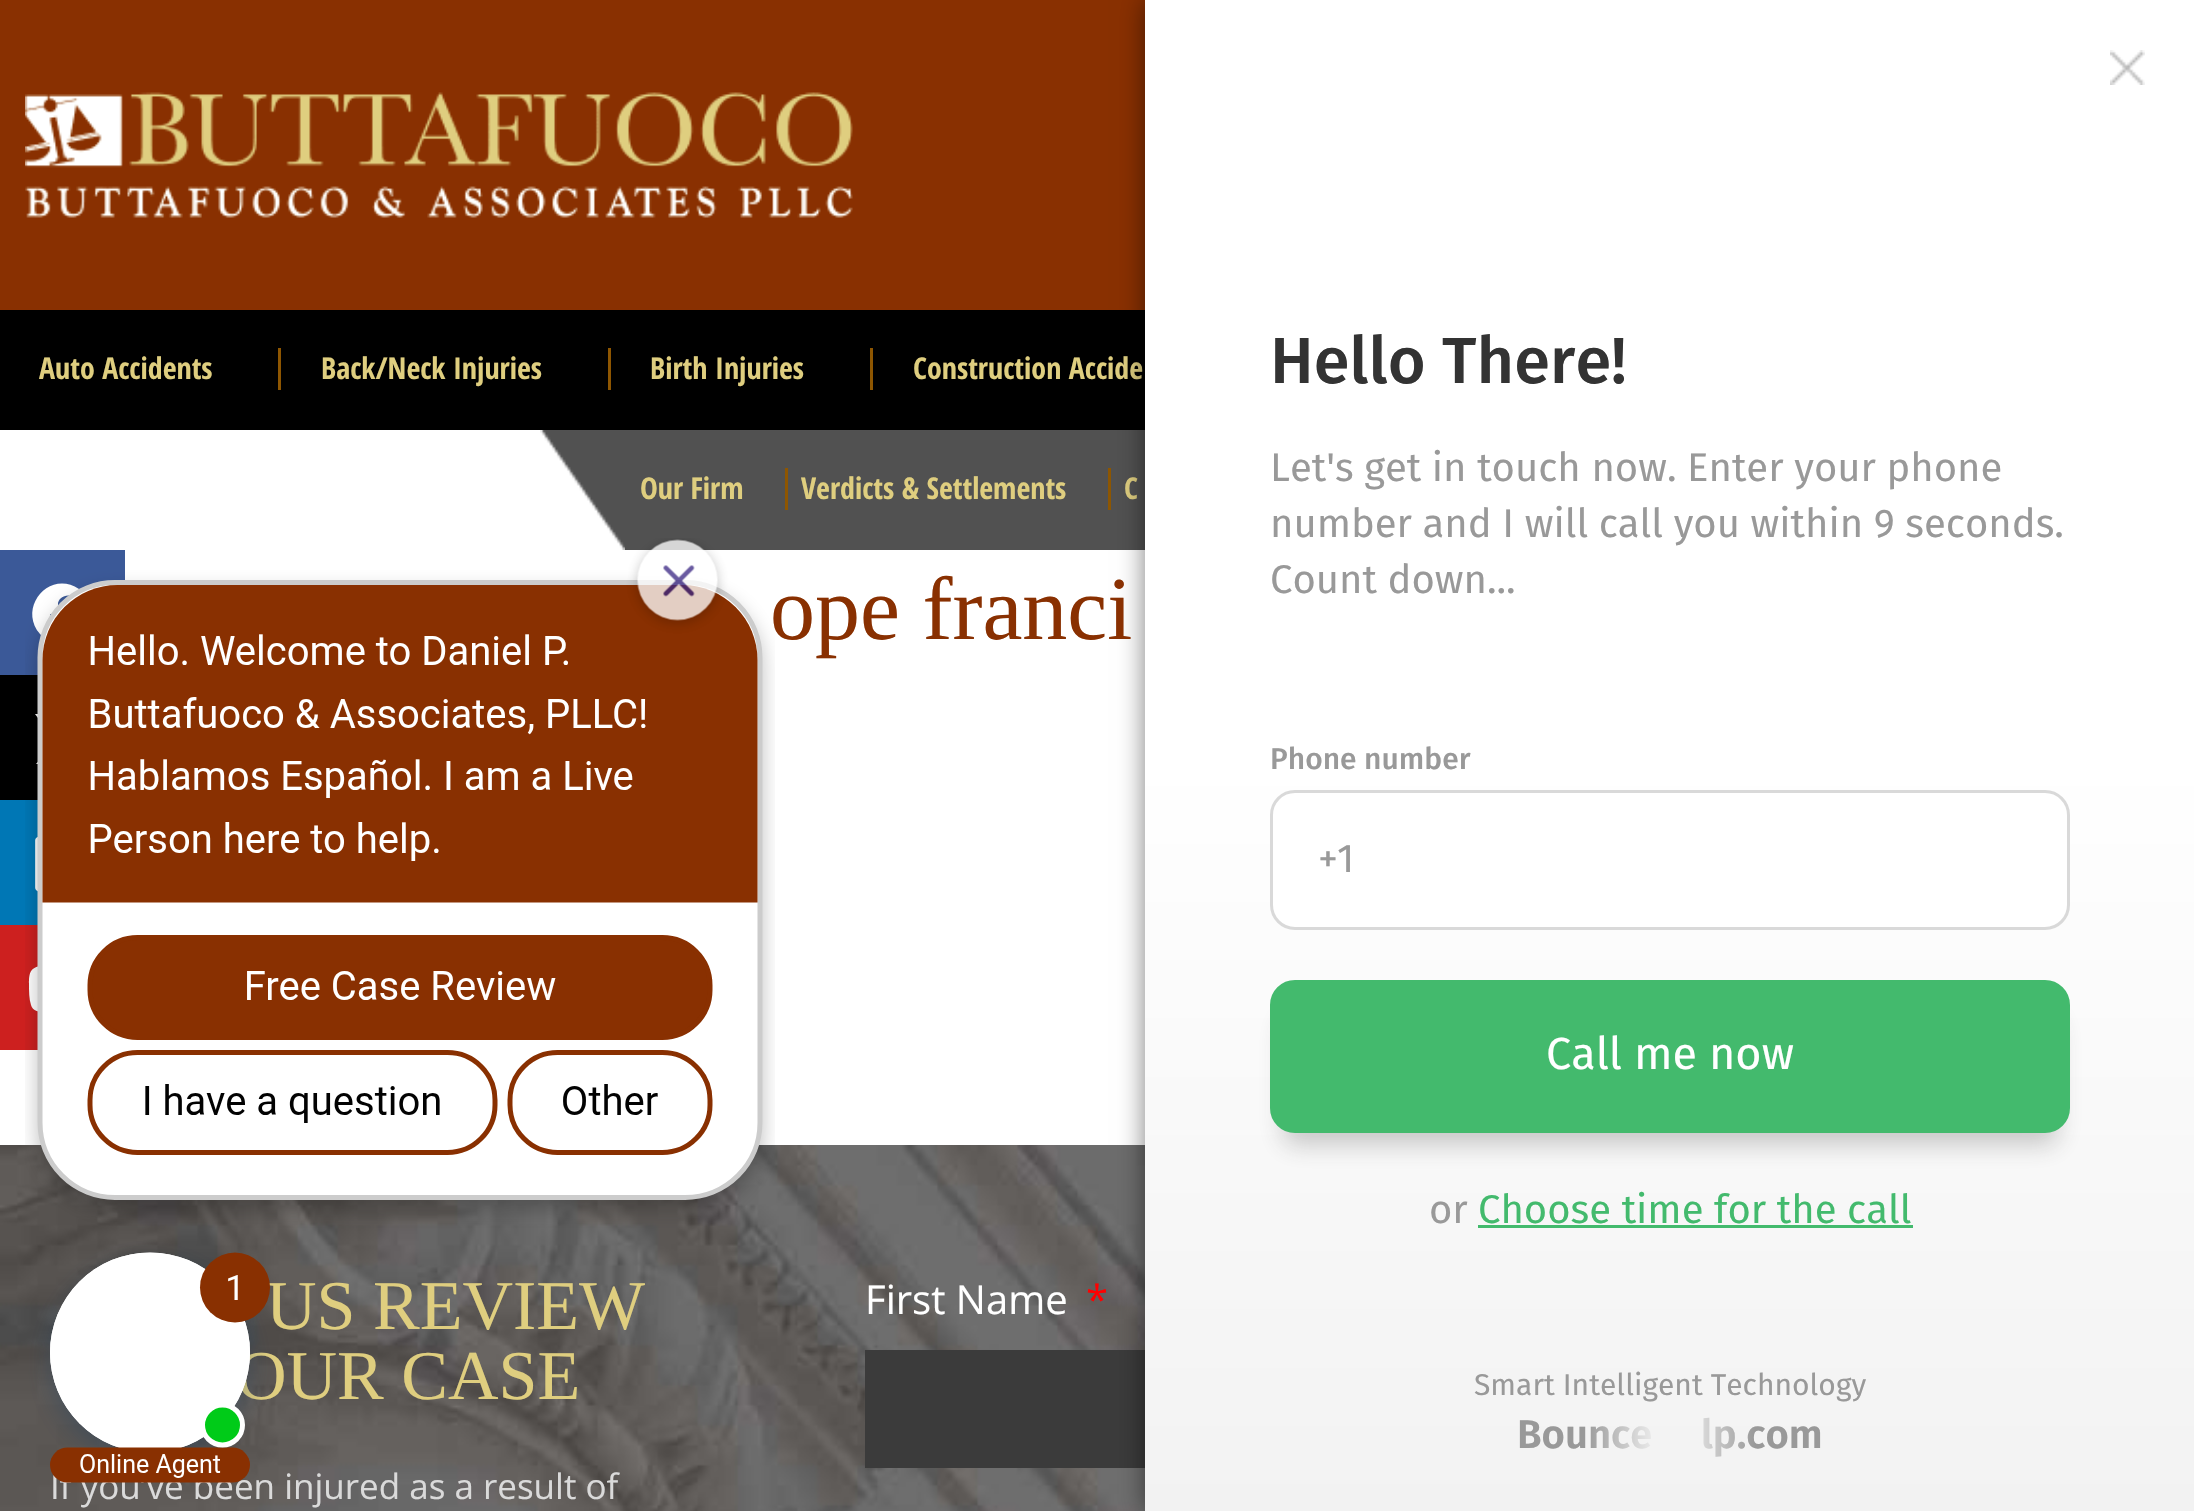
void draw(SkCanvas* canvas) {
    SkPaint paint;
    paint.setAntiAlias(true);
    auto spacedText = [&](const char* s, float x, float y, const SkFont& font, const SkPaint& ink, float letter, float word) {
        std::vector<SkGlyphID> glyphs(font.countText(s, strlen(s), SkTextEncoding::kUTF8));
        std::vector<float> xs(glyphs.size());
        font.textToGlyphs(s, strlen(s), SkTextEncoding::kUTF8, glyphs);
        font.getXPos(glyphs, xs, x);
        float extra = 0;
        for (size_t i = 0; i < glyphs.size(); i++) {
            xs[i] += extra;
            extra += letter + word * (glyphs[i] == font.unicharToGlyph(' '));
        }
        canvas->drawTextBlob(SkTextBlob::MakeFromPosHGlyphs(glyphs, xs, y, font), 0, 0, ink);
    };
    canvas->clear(0xFFFFFFFF);
    paint.setColor(0xFF893001);
    canvas->drawRect(SkRect::MakeXYWH(0, 0, 1145, 310), paint);
    canvas->drawImageRect(SkImages::DeferredFromEncodedData(SkData::MakeFromFileName("img1.png")), SkRect::MakeXYWH(25, 92, 828, 126), SkSamplingOptions());
    paint.setColor(0xFF000000);
    canvas->drawRect(SkRect::MakeXYWH(0, 310, 1145, 120), paint);
    SkFont font1(fontMgr->matchFamilyStyle("Open Sans Condensed", SkFontStyle::Bold()), 30);
    font1.setSubpixel(true);
    paint.setColor(0xFFDFCE7F);
    canvas->drawString("Auto Accidents", 39, 379, font1, paint);
    paint.setColor(0xFF8E5601);
    canvas->drawRect(SkRect::MakeXYWH(278, 348, 3, 42), paint);
    paint.setColor(0xFFDFCE7F);
    canvas->drawString("Back/Neck Injuries", 321, 379, font1, paint);
    paint.setColor(0xFF8E5601);
    canvas->drawRect(SkRect::MakeXYWH(608, 348, 3, 42), paint);
    paint.setColor(0xFFDFCE7F);
    canvas->drawString("Birth Injuries", 650, 379, font1, paint);
    paint.setColor(0xFF8E5601);
    canvas->drawRect(SkRect::MakeXYWH(870, 348, 3, 42), paint);
    paint.setColor(0xFFDFCE7F);
    canvas->drawString("Construction Accide", 913, 379, font1, paint);
    canvas->drawImageRect(SkImages::DeferredFromEncodedData(SkData::MakeFromFileName("img2.png")), SkRect::MakeXYWH(540, 430, 85, 120), SkSamplingOptions());
    paint.setColor(0xFF515151);
    canvas->drawRect(SkRect::MakeXYWH(625, 430, 520, 120), paint);
    paint.setColor(0xFFDFCE7F);
    canvas->drawString("Our Firm", 640, 499, font1, paint);
    paint.setColor(0xFF8E5601);
    canvas->drawRect(SkRect::MakeXYWH(785, 468, 3, 42), paint);
    paint.setColor(0xFFDFCE7F);
    canvas->drawString("Verdicts & Settlements", 801, 499, font1, paint);
    paint.setColor(0xFF8E5601);
    canvas->drawRect(SkRect::MakeXYWH(1108, 468, 3, 42), paint);
    paint.setColor(0xFFDFCE7F);
    canvas->drawString("C", 1124, 499, font1, paint);
    paint.setColor(0xFF3B5998);
    canvas->drawRect(SkRect::MakeXYWH(0, 550, 125, 125), paint);
    paint.setColor(0xFFFFFFFF);
    canvas->drawPath(SkPathBuilder().moveTo(93, 614).cubicTo(93, 629, 82, 642, 67, 644).lineTo(67, 623).lineTo(74, 623).lineTo(76, 614).lineTo(67, 614).cubicTo(67, 605, 67, 604, 76, 604).lineTo(76, 596).cubicTo(69, 595, 60, 595, 58, 603).lineTo(58, 614).lineTo(50, 614).lineTo(50, 623).lineTo(58, 623).lineTo(58, 644).cubicTo(51, 643, 44, 639, 40, 634).cubicTo(17, 607, 50, 569, 79, 589).cubicTo(88, 595, 93, 604, 93, 614).close().detach(), paint);
    paint.setColor(0xFF000000);
    canvas->drawRect(SkRect::MakeXYWH(0, 675, 38, 125), paint);
    paint.setColor(0xFFFFFFFF);
    canvas->drawPath(SkPathBuilder().moveTo(79, 714).lineTo(87, 714).lineTo(69, 735).lineTo(91, 764).lineTo(73, 764).lineTo(60, 747).lineTo(44, 764).lineTo(36, 764).lineTo(56, 742).lineTo(35, 714).lineTo(52, 714).lineTo(65, 730).close().moveTo(76, 759).lineTo(81, 759).lineTo(50, 719).lineTo(45, 719).close().detach(), paint);
    paint.setColor(0xFF0077B5);
    canvas->drawRect(SkRect::MakeXYWH(0, 800, 38, 125), paint);
    canvas->drawImageRect(SkImages::DeferredFromEncodedData(SkData::MakeFromFileName("img3.png")), SkRect::MakeXYWH(35, 837, 3, 55), SkSamplingOptions());
    paint.setColor(0xFFCD201F);
    canvas->drawRect(SkRect::MakeXYWH(0, 925, 38, 125), paint);
    paint.setColor(0xFFFFFFFF);
    canvas->drawPath(SkPathBuilder().moveTo(94, 973).cubicTo(96, 980, 96, 987, 96, 994).cubicTo(95, 1014, 89, 1012, 70, 1012).lineTo(53, 1012).cubicTo(47, 1012, 33, 1014, 31, 1005).cubicTo(29, 999, 29, 991, 29, 984).cubicTo(29, 973, 30, 967, 42, 966).lineTo(57, 966).lineTo(76, 966).cubicTo(83, 966, 92, 965, 94, 973).close().moveTo(56, 999).lineTo(73, 989).lineTo(56, 979).close().detach(), paint);
    canvas->drawImageRect(SkImages::DeferredFromEncodedData(SkData::MakeFromFileName("img6.png")), SkRect::MakeXYWH(0, 1145, 1145, 366), SkSamplingOptions());
    paint.setColor(0xFF3B3B3B);
    canvas->drawRect(SkRect::MakeXYWH(865, 1350, 280, 118), paint);
    paint.setColor(0x80000000);
    paint.setMaskFilter(SkMaskFilter::MakeBlur(kNormal_SkBlurStyle, 12.5f));
    canvas->drawRect(SkRect::MakeXYWH(1145, 0, 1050, 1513), paint);
    paint.setMaskFilter(nullptr);
    {
        const SkColor colors[] = {0xFFFFFFFF, 0xFFF2F2F2};
        const float stops[] = {0.5f, 1};
        const SkPoint ends[] = {{1670, 0}, {1670, 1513}};
        paint.setShader(SkGradientShader::MakeLinear(ends, colors, stops, 2, SkTileMode::kClamp));
        paint.setAlpha(255);
    }
    canvas->drawRect(SkRect::MakeXYWH(1145, 0, 1049, 1511), paint);
    canvas->drawImageRect(SkImages::DeferredFromEncodedData(SkData::MakeFromFileName("img4.png")), SkRect::MakeXYWH(2110, 50, 35, 35), SkSamplingOptions());
    SkFont font2(fontMgr->matchFamilyStyle("Fira Sans", SkFontStyle(500, SkFontStyle::kNormal_Width, SkFontStyle::kUpright_Slant)), 65);
    font2.setSubpixel(true);
    paint.setShader(nullptr);
    paint.setColor(0xFF333333);
    canvas->drawString("Hello There!", 1270, 383, font2, paint);
    SkFont font3(fontMgr->matchFamilyStyle("Fira Sans", SkFontStyle::Normal()), 40);
    font3.setSubpixel(true);
    paint.setColor(0xFF999999);
    canvas->drawString("Let's get in touch now. Enter your phone", 1270, 481, font3, paint);
    canvas->drawString("number and I will call you within 9 seconds.", 1270, 537, font3, paint);
    canvas->drawString("Count down...", 1270, 593, font3, paint);
    SkFont font4(fontMgr->matchFamilyStyle("Fira Sans", SkFontStyle(500, SkFontStyle::kNormal_Width, SkFontStyle::kUpright_Slant)), 30);
    font4.setSubpixel(true);
    canvas->drawString("Phone number", 1270, 769, font4, paint);
    paint.setColor(0xFFFFFFFF);
    canvas->drawRoundRect(SkRect::MakeXYWH(1271.5f, 791.5f, 797, 137), 23.5f, 23.5f, paint);
    paint.setStyle(SkPaint::kStroke_Style);
    paint.setStrokeWidth(3);
    paint.setColor(0xFFD9D9D9);
    canvas->drawRoundRect(SkRect::MakeXYWH(1271.5f, 791.5f, 797, 137), 23.5f, 23.5f, paint);
    paint.setStyle(SkPaint::kFill_Style);
    paint.setColor(0xFF999999);
    spacedText("+1", 1318, 872, font3, paint, -1, 0);
    paint.setColor(0x40333333);
    paint.setMaskFilter(SkMaskFilter::MakeBlur(kNormal_SkBlurStyle, 12.5f));
    canvas->drawRoundRect(SkRect::MakeXYWH(1283, 1018, 775, 127), 13, 13, paint);
    paint.setMaskFilter(nullptr);
    paint.setColor(0xFF43BA6D);
    canvas->drawRoundRect(SkRect::MakeXYWH(1272.5f, 982.5f, 795, 148), 22.5f, 22.5f, paint);
    paint.setStyle(SkPaint::kStroke_Style);
    paint.setStrokeWidth(5);
    canvas->drawRoundRect(SkRect::MakeXYWH(1272.5f, 982.5f, 795, 148), 22.5f, 22.5f, paint);
    SkFont font5(fontMgr->matchFamilyStyle("Fira Sans", SkFontStyle::Normal()), 45);
    font5.setSubpixel(true);
    paint.setStyle(SkPaint::kFill_Style);
    paint.setColor(0xFFFFFFFF);
    canvas->drawString("Call me now", 1546, 1069, font5, paint);
    paint.setColor(0xFF999999);
    canvas->drawString("or", 1429, 1223, font3, paint);
    paint.setColor(0xFF43BA6D);
    canvas->drawString("Choose time for the call", 1478, 1223, font3, paint);
    canvas->drawRect(SkRect::MakeXYWH(1478, 1225, 435, 3), paint);
    SkFont font6(fontMgr->matchFamilyStyle("Fira Sans", SkFontStyle::Normal()), 30);
    font6.setSubpixel(true);
    paint.setColor(0xFF999999);
    canvas->drawString("Smart Intelligent Technology", 1474, 1395, font6, paint);
    SkFont font7(fontMgr->matchFamilyStyle("Fira Sans", SkFontStyle(600, SkFontStyle::kNormal_Width, SkFontStyle::kUpright_Slant)), 40);
    font7.setSubpixel(true);
    {
        const SkColor colors[] = {0xFF999999, 0xFF999999, 0xFFFFFFFF, 0xFF999999, 0xFF999999};
        const float stops[] = {0, 0.4f, 0.5f, 0.6f, 1};
        const SkPoint ends[] = {{1245, 1410}, {2095, 1410}};
        paint.setShader(SkGradientShader::MakeLinear(ends, colors, stops, 5, SkTileMode::kClamp));
        paint.setAlpha(255);
    }
    canvas->drawString("Bounce", 1517, 1448, font7, paint);
    canvas->drawString("lp.com", 1701, 1448, font7, paint);
    SkFont font8(fontMgr->matchFamilyStyle("Liberation Serif", SkFontStyle::Normal()), 90);
    font8.setSubpixel(true);
    paint.setShader(nullptr);
    paint.setColor(0xFF893001);
    canvas->drawString("ope franci", 770, 639, font8, paint);
    SkFont font9(fontMgr->matchFamilyStyle("Liberation Serif", SkFontStyle::Normal()), 70);
    font9.setSubpixel(true);
    paint.setColor(0xFFDFCE7F);
    canvas->drawString("US REVIEW", 266, 1329, font9, paint);
    canvas->drawString("OUR CASE", 236, 1399, font9, paint);
    SkFont font10(fontMgr->matchFamilyStyle("Open Sans", SkFontStyle::Normal()), 35);
    font10.setSubpixel(true);
    paint.setColor(0xFFDADADA);
    canvas->drawString("If you’ve been injured as a result of", 50, 1499, font10, paint);
    canvas->drawImageRect(SkImages::DeferredFromEncodedData(SkData::MakeFromFileName("img5.png")), SkRect::MakeXYWH(25, 538, 750, 945), SkSamplingOptions());
    SkFont font11(fontMgr->matchFamilyStyle("Open Sans", SkFontStyle::Normal()), 40);
    font11.setSubpixel(true);
    paint.setColor(0xFFFFFFFF);
    canvas->drawString("First Name", 865, 1314, font11, paint);
    paint.setColor(0xFFFF0000);
    canvas->drawString("*", 1086, 1314, font11, paint);
}
